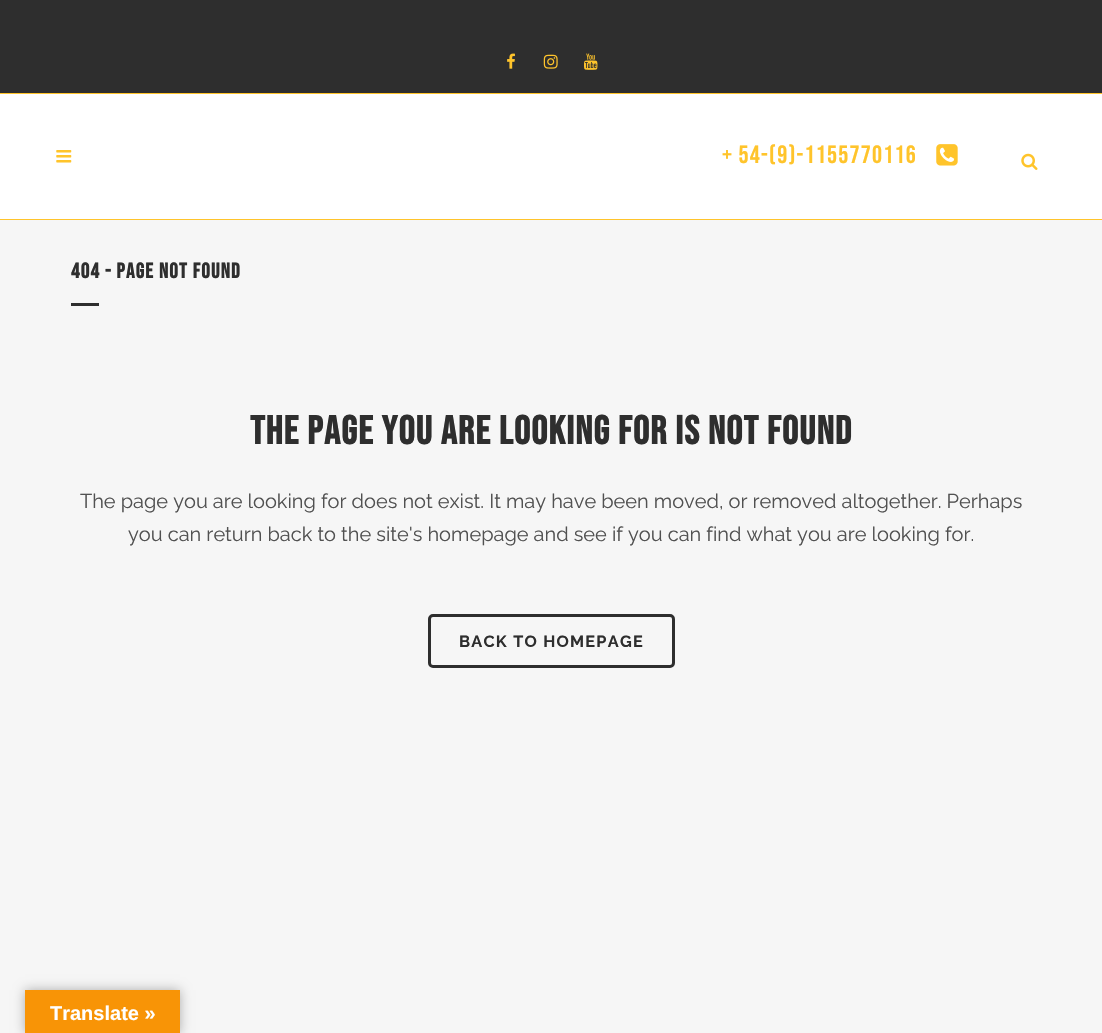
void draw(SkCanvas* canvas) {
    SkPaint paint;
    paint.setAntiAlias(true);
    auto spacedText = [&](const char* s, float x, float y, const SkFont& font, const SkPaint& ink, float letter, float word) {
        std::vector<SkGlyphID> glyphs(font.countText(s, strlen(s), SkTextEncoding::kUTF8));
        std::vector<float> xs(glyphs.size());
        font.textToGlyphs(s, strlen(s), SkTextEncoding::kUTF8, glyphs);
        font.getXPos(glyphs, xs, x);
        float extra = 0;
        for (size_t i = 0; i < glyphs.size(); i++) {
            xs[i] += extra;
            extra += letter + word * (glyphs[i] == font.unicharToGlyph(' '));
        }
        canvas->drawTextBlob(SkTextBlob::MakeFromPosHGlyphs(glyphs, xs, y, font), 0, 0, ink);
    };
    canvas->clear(0xFFF6F6F6);
    paint.setColor(0xFF2E2E2E);
    canvas->drawRect(SkRect::MakeXYWH(0, 0, 1102, 93), paint);
    paint.setColor(0xFFFFC42B);
    canvas->drawRect(SkRect::MakeXYWH(0, 93, 1102, 1), paint);
    canvas->drawImageRect(SkImages::DeferredFromEncodedData(SkData::MakeFromFileName("img1.png")), SkRect::MakeXYWH(507, 53, 8, 16), SkSamplingOptions());
    canvas->drawImageRect(SkImages::DeferredFromEncodedData(SkData::MakeFromFileName("img2.png")), SkRect::MakeXYWH(543, 54, 15, 15), SkSamplingOptions());
    canvas->drawImageRect(SkImages::DeferredFromEncodedData(SkData::MakeFromFileName("img3.png")), SkRect::MakeXYWH(584, 53, 14, 17), SkSamplingOptions());
    paint.setColor(0xFFFFFFFF);
    canvas->drawRect(SkRect::MakeXYWH(0, 94, 1102, 125), paint);
    paint.setColor(0xFFFFC42B);
    canvas->drawRect(SkRect::MakeXYWH(0, 219, 1102, 1), paint);
    canvas->drawImageRect(SkImages::DeferredFromEncodedData(SkData::MakeFromFileName("img4.png")), SkRect::MakeXYWH(56, 150, 16, 13), SkSamplingOptions());
    SkFont font1(fontMgr->matchFamilyStyle("Bebas Neue", SkFontStyle::Normal()), 25);
    font1.setSubpixel(true);
    spacedText("+ 54-(9)-1155770116", 722, 163, font1, paint, 1.25f, 0);
    canvas->drawImageRect(SkImages::DeferredFromEncodedData(SkData::MakeFromFileName("img5.png")), SkRect::MakeXYWH(936, 144, 22, 22), SkSamplingOptions());
    canvas->drawImageRect(SkImages::DeferredFromEncodedData(SkData::MakeFromFileName("img6.png")), SkRect::MakeXYWH(1021, 153, 17, 17), SkSamplingOptions());
    SkFont font2(fontMgr->matchFamilyStyle("Bebas Neue", SkFontStyle::Bold()), 21.25f);
    font2.setSubpixel(true);
    paint.setColor(0xFF2E2E2E);
    spacedText("404 - PAGE NOT FOUND", 71, 278, font2, paint, 1.25f, 0);
    canvas->drawRect(SkRect::MakeXYWH(71, 303, 28, 3), paint);
    SkFont font3(fontMgr->matchFamilyStyle("Bebas Neue", SkFontStyle::Bold()), 40);
    font3.setSubpixel(true);
    spacedText("THE PAGE YOU ARE LOOKING FOR IS NOT FOUND", 250, 444, font3, paint, 1.25f, 0);
    SkFont font4(fontMgr->matchFamilyStyle("Raleway", SkFontStyle::Normal()), 20);
    font4.setSubpixel(true);
    paint.setColor(0xFF515151);
    canvas->drawString("The page you are looking for does not exist. It may have been moved, or removed altogether. Perhaps", 80, 508, font4, paint);
    canvas->drawString("you can return back to the site's homepage and see if you can find what you are looking for.", 128, 541, font4, paint);
    paint.setStyle(SkPaint::kStroke_Style);
    paint.setStrokeWidth(3);
    paint.setColor(0xFF2E2E2E);
    canvas->drawRoundRect(SkRect::MakeXYWH(429.5f, 615.5f, 244, 51), 3.5f, 3.5f, paint);
    SkFont font5(fontMgr->matchFamilyStyle("Raleway", SkFontStyle::Bold()), 16.25f);
    font5.setSubpixel(true);
    paint.setStyle(SkPaint::kFill_Style);
    spacedText("BACK TO HOMEPAGE", 459, 647, font5, paint, 1.25f, 0);
    paint.setColor(0x4D000000);
    paint.setMaskFilter(SkMaskFilter::MakeBlur(kNormal_SkBlurStyle, 5.5f));
    canvas->drawRect(SkRect::MakeXYWH(25, 990, 155, 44), paint);
    paint.setMaskFilter(nullptr);
    paint.setColor(0xFFF89406);
    canvas->drawRect(SkRect::MakeXYWH(25, 990, 155, 43), paint);
    SkFont font6(fontMgr->matchFamilyStyle("Liberation Sans", SkFontStyle::Bold()), 20);
    font6.setSubpixel(true);
    paint.setColor(0xFFFFFFFF);
    canvas->drawString("Translate »", 50, 1020, font6, paint);
}
